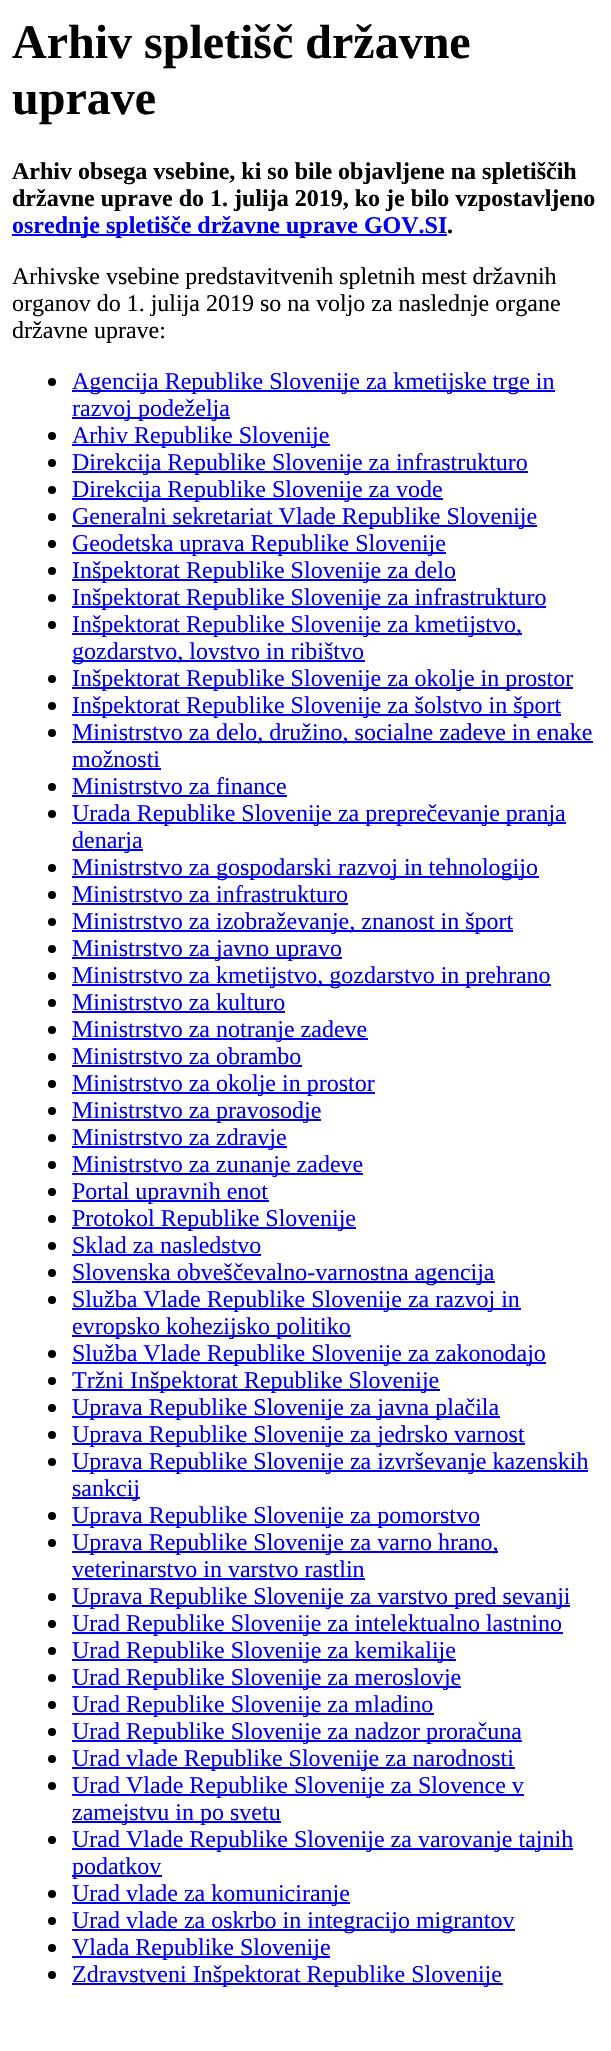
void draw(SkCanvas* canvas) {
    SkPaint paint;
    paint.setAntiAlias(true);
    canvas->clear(0xFFFFFFFF);
    SkFont font1(fontMgr->matchFamilyStyle("Liberation Serif", SkFontStyle::Bold()), 48);
    font1.setSubpixel(true);
    paint.setColor(0xFF000000);
    canvas->drawString("Arhiv spletišč državne", 12, 58, font1, paint);
    canvas->drawString("uprave", 12, 114, font1, paint);
    SkFont font2(fontMgr->matchFamilyStyle("Liberation Serif", SkFontStyle::Bold()), 24);
    font2.setSubpixel(true);
    canvas->drawString("Arhiv obsega vsebine, ki so bile objavljene na spletiščih", 12, 179, font2, paint);
    canvas->drawString("državne uprave do 1. julija 2019, ko je bilo vzpostavljeno", 12, 206, font2, paint);
    paint.setColor(0xFF0000EE);
    canvas->drawRect(SkRect::MakeXYWH(12, 234, 435, 2), paint);
    canvas->drawString("osrednje spletišče državne uprave GOV.SI", 12, 233, font2, paint);
    paint.setColor(0xFF000000);
    canvas->drawString(".", 447, 233, font2, paint);
    SkFont font3(fontMgr->matchFamilyStyle("Liberation Serif", SkFontStyle::Normal()), 24);
    font3.setSubpixel(true);
    canvas->drawString("Arhivske vsebine predstavitvenih spletnih mest državnih", 12, 284, font3, paint);
    canvas->drawString("organov do 1. julija 2019 so na voljo za naslednje organe", 12, 311, font3, paint);
    canvas->drawString("državne uprave:", 12, 338, font3, paint);
    canvas->drawCircle(52, 382, 4, paint);
    paint.setColor(0xFF0000EE);
    canvas->drawRect(SkRect::MakeXYWH(72, 390, 483, 2), paint);
    canvas->drawString("Agencija Republike Slovenije za kmetijske trge in", 72, 389, font3, paint);
    canvas->drawRect(SkRect::MakeXYWH(72, 417, 158, 2), paint);
    canvas->drawString("razvoj podeželja", 72, 416, font3, paint);
    paint.setColor(0xFF000000);
    canvas->drawCircle(52, 436, 4, paint);
    paint.setColor(0xFF0000EE);
    canvas->drawRect(SkRect::MakeXYWH(72, 444, 258, 2), paint);
    canvas->drawString("Arhiv Republike Slovenije", 72, 443, font3, paint);
    paint.setColor(0xFF000000);
    canvas->drawCircle(52, 463, 4, paint);
    paint.setColor(0xFF0000EE);
    canvas->drawRect(SkRect::MakeXYWH(72, 471, 456, 2), paint);
    canvas->drawString("Direkcija Republike Slovenije za infrastrukturo", 72, 470, font3, paint);
    paint.setColor(0xFF000000);
    canvas->drawCircle(52, 490, 4, paint);
    paint.setColor(0xFF0000EE);
    canvas->drawRect(SkRect::MakeXYWH(72, 498, 371, 2), paint);
    canvas->drawString("Direkcija Republike Slovenije za vode", 72, 497, font3, paint);
    paint.setColor(0xFF000000);
    canvas->drawCircle(52, 517, 4, paint);
    paint.setColor(0xFF0000EE);
    canvas->drawRect(SkRect::MakeXYWH(72, 525, 465, 2), paint);
    canvas->drawString("Generalni sekretariat Vlade Republike Slovenije", 72, 524, font3, paint);
    paint.setColor(0xFF000000);
    canvas->drawCircle(52, 544, 4, paint);
    paint.setColor(0xFF0000EE);
    canvas->drawRect(SkRect::MakeXYWH(72, 552, 374, 2), paint);
    canvas->drawString("Geodetska uprava Republike Slovenije", 72, 551, font3, paint);
    paint.setColor(0xFF000000);
    canvas->drawCircle(52, 571, 4, paint);
    paint.setColor(0xFF0000EE);
    canvas->drawRect(SkRect::MakeXYWH(72, 579, 384, 2), paint);
    canvas->drawString("Inšpektorat Republike Slovenije za delo", 72, 578, font3, paint);
    paint.setColor(0xFF000000);
    canvas->drawCircle(52, 598, 4, paint);
    paint.setColor(0xFF0000EE);
    canvas->drawRect(SkRect::MakeXYWH(72, 606, 474, 2), paint);
    canvas->drawString("Inšpektorat Republike Slovenije za infrastrukturo", 72, 605, font3, paint);
    paint.setColor(0xFF000000);
    canvas->drawCircle(52, 625, 4, paint);
    paint.setColor(0xFF0000EE);
    canvas->drawRect(SkRect::MakeXYWH(72, 633, 450, 2), paint);
    canvas->drawString("Inšpektorat Republike Slovenije za kmetijstvo,", 72, 632, font3, paint);
    canvas->drawRect(SkRect::MakeXYWH(72, 660, 293, 2), paint);
    canvas->drawString("gozdarstvo, lovstvo in ribištvo", 72, 659, font3, paint);
    paint.setColor(0xFF000000);
    canvas->drawCircle(52, 679, 4, paint);
    paint.setColor(0xFF0000EE);
    canvas->drawRect(SkRect::MakeXYWH(72, 687, 501, 2), paint);
    canvas->drawString("Inšpektorat Republike Slovenije za okolje in prostor", 72, 686, font3, paint);
    paint.setColor(0xFF000000);
    canvas->drawCircle(52, 706, 4, paint);
    paint.setColor(0xFF0000EE);
    canvas->drawRect(SkRect::MakeXYWH(72, 714, 489, 2), paint);
    canvas->drawString("Inšpektorat Republike Slovenije za šolstvo in šport", 72, 713, font3, paint);
    paint.setColor(0xFF000000);
    canvas->drawCircle(52, 733, 4, paint);
    paint.setColor(0xFF0000EE);
    canvas->drawRect(SkRect::MakeXYWH(72, 741, 521, 2), paint);
    canvas->drawString("Ministrstvo za delo, družino, socialne zadeve in enake", 72, 740, font3, paint);
    canvas->drawString("možnosti", 72, 767, font3, paint);
    canvas->drawRect(SkRect::MakeXYWH(72, 768, 89, 2), paint);
    paint.setColor(0xFF000000);
    canvas->drawCircle(52, 787, 4, paint);
    paint.setColor(0xFF0000EE);
    canvas->drawString("Ministrstvo za finance", 72, 794, font3, paint);
    canvas->drawRect(SkRect::MakeXYWH(72, 795, 215, 2), paint);
    paint.setColor(0xFF000000);
    canvas->drawCircle(52, 814, 4, paint);
    paint.setColor(0xFF0000EE);
    canvas->drawRect(SkRect::MakeXYWH(72, 822, 494, 2), paint);
    canvas->drawString("Urada Republike Slovenije za preprečevanje pranja", 72, 821, font3, paint);
    canvas->drawRect(SkRect::MakeXYWH(72, 849, 71, 2), paint);
    canvas->drawString("denarja", 72, 848, font3, paint);
    paint.setColor(0xFF000000);
    canvas->drawCircle(52, 868, 4, paint);
    paint.setColor(0xFF0000EE);
    canvas->drawRect(SkRect::MakeXYWH(72, 876, 467, 2), paint);
    canvas->drawString("Ministrstvo za gospodarski razvoj in tehnologijo", 72, 875, font3, paint);
    paint.setColor(0xFF000000);
    canvas->drawCircle(52, 895, 4, paint);
    paint.setColor(0xFF0000EE);
    canvas->drawString("Ministrstvo za infrastrukturo", 72, 902, font3, paint);
    canvas->drawRect(SkRect::MakeXYWH(72, 903, 276, 2), paint);
    paint.setColor(0xFF000000);
    canvas->drawCircle(52, 922, 4, paint);
    paint.setColor(0xFF0000EE);
    canvas->drawRect(SkRect::MakeXYWH(72, 930, 441, 2), paint);
    canvas->drawString("Ministrstvo za izobraževanje, znanost in šport", 72, 929, font3, paint);
    paint.setColor(0xFF000000);
    canvas->drawCircle(52, 949, 4, paint);
    paint.setColor(0xFF0000EE);
    canvas->drawRect(SkRect::MakeXYWH(72, 957, 270, 2), paint);
    canvas->drawString("Ministrstvo za javno upravo", 72, 956, font3, paint);
    paint.setColor(0xFF000000);
    canvas->drawCircle(52, 976, 4, paint);
    paint.setColor(0xFF0000EE);
    canvas->drawRect(SkRect::MakeXYWH(72, 984, 479, 2), paint);
    canvas->drawString("Ministrstvo za kmetijstvo, gozdarstvo in prehrano", 72, 983, font3, paint);
    paint.setColor(0xFF000000);
    canvas->drawCircle(52, 1003, 4, paint);
    paint.setColor(0xFF0000EE);
    canvas->drawString("Ministrstvo za kulturo", 72, 1010, font3, paint);
    canvas->drawRect(SkRect::MakeXYWH(72, 1011, 213, 2), paint);
    paint.setColor(0xFF000000);
    canvas->drawCircle(52, 1030, 4, paint);
    paint.setColor(0xFF0000EE);
    canvas->drawRect(SkRect::MakeXYWH(72, 1038, 296, 2), paint);
    canvas->drawString("Ministrstvo za notranje zadeve", 72, 1037, font3, paint);
    paint.setColor(0xFF000000);
    canvas->drawCircle(52, 1057, 4, paint);
    paint.setColor(0xFF0000EE);
    canvas->drawString("Ministrstvo za obrambo", 72, 1064, font3, paint);
    canvas->drawRect(SkRect::MakeXYWH(72, 1065, 230, 2), paint);
    paint.setColor(0xFF000000);
    canvas->drawCircle(52, 1084, 4, paint);
    paint.setColor(0xFF0000EE);
    canvas->drawRect(SkRect::MakeXYWH(72, 1092, 303, 2), paint);
    canvas->drawString("Ministrstvo za okolje in prostor", 72, 1091, font3, paint);
    paint.setColor(0xFF000000);
    canvas->drawCircle(52, 1111, 4, paint);
    paint.setColor(0xFF0000EE);
    canvas->drawRect(SkRect::MakeXYWH(72, 1119, 249, 2), paint);
    canvas->drawString("Ministrstvo za pravosodje", 72, 1118, font3, paint);
    paint.setColor(0xFF000000);
    canvas->drawCircle(52, 1138, 4, paint);
    paint.setColor(0xFF0000EE);
    canvas->drawRect(SkRect::MakeXYWH(72, 1146, 215, 2), paint);
    canvas->drawString("Ministrstvo za zdravje", 72, 1145, font3, paint);
    paint.setColor(0xFF000000);
    canvas->drawCircle(52, 1165, 4, paint);
    paint.setColor(0xFF0000EE);
    canvas->drawRect(SkRect::MakeXYWH(72, 1173, 291, 2), paint);
    canvas->drawString("Ministrstvo za zunanje zadeve", 72, 1172, font3, paint);
    paint.setColor(0xFF000000);
    canvas->drawCircle(52, 1192, 4, paint);
    paint.setColor(0xFF0000EE);
    canvas->drawRect(SkRect::MakeXYWH(72, 1200, 197, 2), paint);
    canvas->drawString("Portal upravnih enot", 72, 1199, font3, paint);
    paint.setColor(0xFF000000);
    canvas->drawCircle(52, 1219, 4, paint);
    paint.setColor(0xFF0000EE);
    canvas->drawRect(SkRect::MakeXYWH(72, 1227, 284, 2), paint);
    canvas->drawString("Protokol Republike Slovenije", 72, 1226, font3, paint);
    paint.setColor(0xFF000000);
    canvas->drawCircle(52, 1246, 4, paint);
    paint.setColor(0xFF0000EE);
    canvas->drawString("Sklad za nasledstvo", 72, 1253, font3, paint);
    canvas->drawRect(SkRect::MakeXYWH(72, 1254, 189, 2), paint);
    paint.setColor(0xFF000000);
    canvas->drawCircle(52, 1273, 4, paint);
    paint.setColor(0xFF0000EE);
    canvas->drawRect(SkRect::MakeXYWH(72, 1281, 423, 2), paint);
    canvas->drawString("Slovenska obveščevalno-varnostna agencija", 72, 1280, font3, paint);
    paint.setColor(0xFF000000);
    canvas->drawCircle(52, 1300, 4, paint);
    paint.setColor(0xFF0000EE);
    canvas->drawRect(SkRect::MakeXYWH(72, 1308, 449, 2), paint);
    canvas->drawString("Služba Vlade Republike Slovenije za razvoj in", 72, 1307, font3, paint);
    canvas->drawRect(SkRect::MakeXYWH(72, 1335, 279, 2), paint);
    canvas->drawString("evropsko kohezijsko politiko", 72, 1334, font3, paint);
    paint.setColor(0xFF000000);
    canvas->drawCircle(52, 1354, 4, paint);
    paint.setColor(0xFF0000EE);
    canvas->drawRect(SkRect::MakeXYWH(72, 1362, 474, 2), paint);
    canvas->drawString("Služba Vlade Republike Slovenije za zakonodajo", 72, 1361, font3, paint);
    paint.setColor(0xFF000000);
    canvas->drawCircle(52, 1381, 4, paint);
    paint.setColor(0xFF0000EE);
    canvas->drawRect(SkRect::MakeXYWH(72, 1389, 368, 2), paint);
    canvas->drawString("Tržni Inšpektorat Republike Slovenije", 72, 1388, font3, paint);
    paint.setColor(0xFF000000);
    canvas->drawCircle(52, 1408, 4, paint);
    paint.setColor(0xFF0000EE);
    canvas->drawRect(SkRect::MakeXYWH(72, 1416, 428, 2), paint);
    canvas->drawString("Uprava Republike Slovenije za javna plačila", 72, 1415, font3, paint);
    paint.setColor(0xFF000000);
    canvas->drawCircle(52, 1435, 4, paint);
    paint.setColor(0xFF0000EE);
    canvas->drawRect(SkRect::MakeXYWH(72, 1443, 453, 2), paint);
    canvas->drawString("Uprava Republike Slovenije za jedrsko varnost", 72, 1442, font3, paint);
    paint.setColor(0xFF000000);
    canvas->drawCircle(52, 1462, 4, paint);
    paint.setColor(0xFF0000EE);
    canvas->drawRect(SkRect::MakeXYWH(72, 1470, 516, 2), paint);
    canvas->drawString("Uprava Republike Slovenije za izvrševanje kazenskih", 72, 1469, font3, paint);
    canvas->drawRect(SkRect::MakeXYWH(72, 1497, 68, 2), paint);
    canvas->drawString("sankcij", 72, 1496, font3, paint);
    paint.setColor(0xFF000000);
    canvas->drawCircle(52, 1516, 4, paint);
    paint.setColor(0xFF0000EE);
    canvas->drawRect(SkRect::MakeXYWH(72, 1524, 408, 2), paint);
    canvas->drawString("Uprava Republike Slovenije za pomorstvo", 72, 1523, font3, paint);
    paint.setColor(0xFF000000);
    canvas->drawCircle(52, 1543, 4, paint);
    paint.setColor(0xFF0000EE);
    canvas->drawRect(SkRect::MakeXYWH(72, 1551, 426, 2), paint);
    canvas->drawString("Uprava Republike Slovenije za varno hrano,", 72, 1550, font3, paint);
    canvas->drawString("veterinarstvo in varstvo rastlin", 72, 1577, font3, paint);
    canvas->drawRect(SkRect::MakeXYWH(72, 1578, 293, 2), paint);
    paint.setColor(0xFF000000);
    canvas->drawCircle(52, 1597, 4, paint);
    paint.setColor(0xFF0000EE);
    canvas->drawRect(SkRect::MakeXYWH(72, 1605, 498, 2), paint);
    canvas->drawString("Uprava Republike Slovenije za varstvo pred sevanji", 72, 1604, font3, paint);
    paint.setColor(0xFF000000);
    canvas->drawCircle(52, 1624, 4, paint);
    paint.setColor(0xFF0000EE);
    canvas->drawRect(SkRect::MakeXYWH(72, 1632, 491, 2), paint);
    canvas->drawString("Urad Republike Slovenije za intelektualno lastnino", 72, 1631, font3, paint);
    paint.setColor(0xFF000000);
    canvas->drawCircle(52, 1651, 4, paint);
    paint.setColor(0xFF0000EE);
    canvas->drawRect(SkRect::MakeXYWH(72, 1659, 384, 2), paint);
    canvas->drawString("Urad Republike Slovenije za kemikalije", 72, 1658, font3, paint);
    paint.setColor(0xFF000000);
    canvas->drawCircle(52, 1678, 4, paint);
    paint.setColor(0xFF0000EE);
    canvas->drawRect(SkRect::MakeXYWH(72, 1686, 389, 2), paint);
    canvas->drawString("Urad Republike Slovenije za meroslovje", 72, 1685, font3, paint);
    paint.setColor(0xFF000000);
    canvas->drawCircle(52, 1705, 4, paint);
    paint.setColor(0xFF0000EE);
    canvas->drawRect(SkRect::MakeXYWH(72, 1713, 362, 2), paint);
    canvas->drawString("Urad Republike Slovenije za mladino", 72, 1712, font3, paint);
    paint.setColor(0xFF000000);
    canvas->drawCircle(52, 1732, 4, paint);
    paint.setColor(0xFF0000EE);
    canvas->drawRect(SkRect::MakeXYWH(72, 1740, 450, 2), paint);
    canvas->drawString("Urad Republike Slovenije za nadzor proračuna", 72, 1739, font3, paint);
    paint.setColor(0xFF000000);
    canvas->drawCircle(52, 1759, 4, paint);
    paint.setColor(0xFF0000EE);
    canvas->drawRect(SkRect::MakeXYWH(72, 1767, 443, 2), paint);
    canvas->drawString("Urad vlade Republike Slovenije za narodnosti", 72, 1766, font3, paint);
    paint.setColor(0xFF000000);
    canvas->drawCircle(52, 1786, 4, paint);
    paint.setColor(0xFF0000EE);
    canvas->drawRect(SkRect::MakeXYWH(72, 1794, 452, 2), paint);
    canvas->drawString("Urad Vlade Republike Slovenije za Slovence v", 72, 1793, font3, paint);
    canvas->drawRect(SkRect::MakeXYWH(72, 1821, 209, 2), paint);
    canvas->drawString("zamejstvu in po svetu", 72, 1820, font3, paint);
    paint.setColor(0xFF000000);
    canvas->drawCircle(52, 1840, 4, paint);
    paint.setColor(0xFF0000EE);
    canvas->drawRect(SkRect::MakeXYWH(72, 1848, 501, 2), paint);
    canvas->drawString("Urad Vlade Republike Slovenije za varovanje tajnih", 72, 1847, font3, paint);
    canvas->drawRect(SkRect::MakeXYWH(72, 1875, 90, 2), paint);
    canvas->drawString("podatkov", 72, 1874, font3, paint);
    paint.setColor(0xFF000000);
    canvas->drawCircle(52, 1894, 4, paint);
    paint.setColor(0xFF0000EE);
    canvas->drawRect(SkRect::MakeXYWH(72, 1902, 278, 2), paint);
    canvas->drawString("Urad vlade za komuniciranje", 72, 1901, font3, paint);
    paint.setColor(0xFF000000);
    canvas->drawCircle(52, 1921, 4, paint);
    paint.setColor(0xFF0000EE);
    canvas->drawRect(SkRect::MakeXYWH(72, 1929, 443, 2), paint);
    canvas->drawString("Urad vlade za oskrbo in integracijo migrantov", 72, 1928, font3, paint);
    paint.setColor(0xFF000000);
    canvas->drawCircle(52, 1948, 4, paint);
    paint.setColor(0xFF0000EE);
    canvas->drawRect(SkRect::MakeXYWH(72, 1956, 258, 2), paint);
    canvas->drawString("Vlada Republike Slovenije", 72, 1955, font3, paint);
    paint.setColor(0xFF000000);
    canvas->drawCircle(52, 1975, 4, paint);
    paint.setColor(0xFF0000EE);
    canvas->drawRect(SkRect::MakeXYWH(72, 1983, 431, 2), paint);
    canvas->drawString("Zdravstveni Inšpektorat Republike Slovenije", 72, 1982, font3, paint);
}
